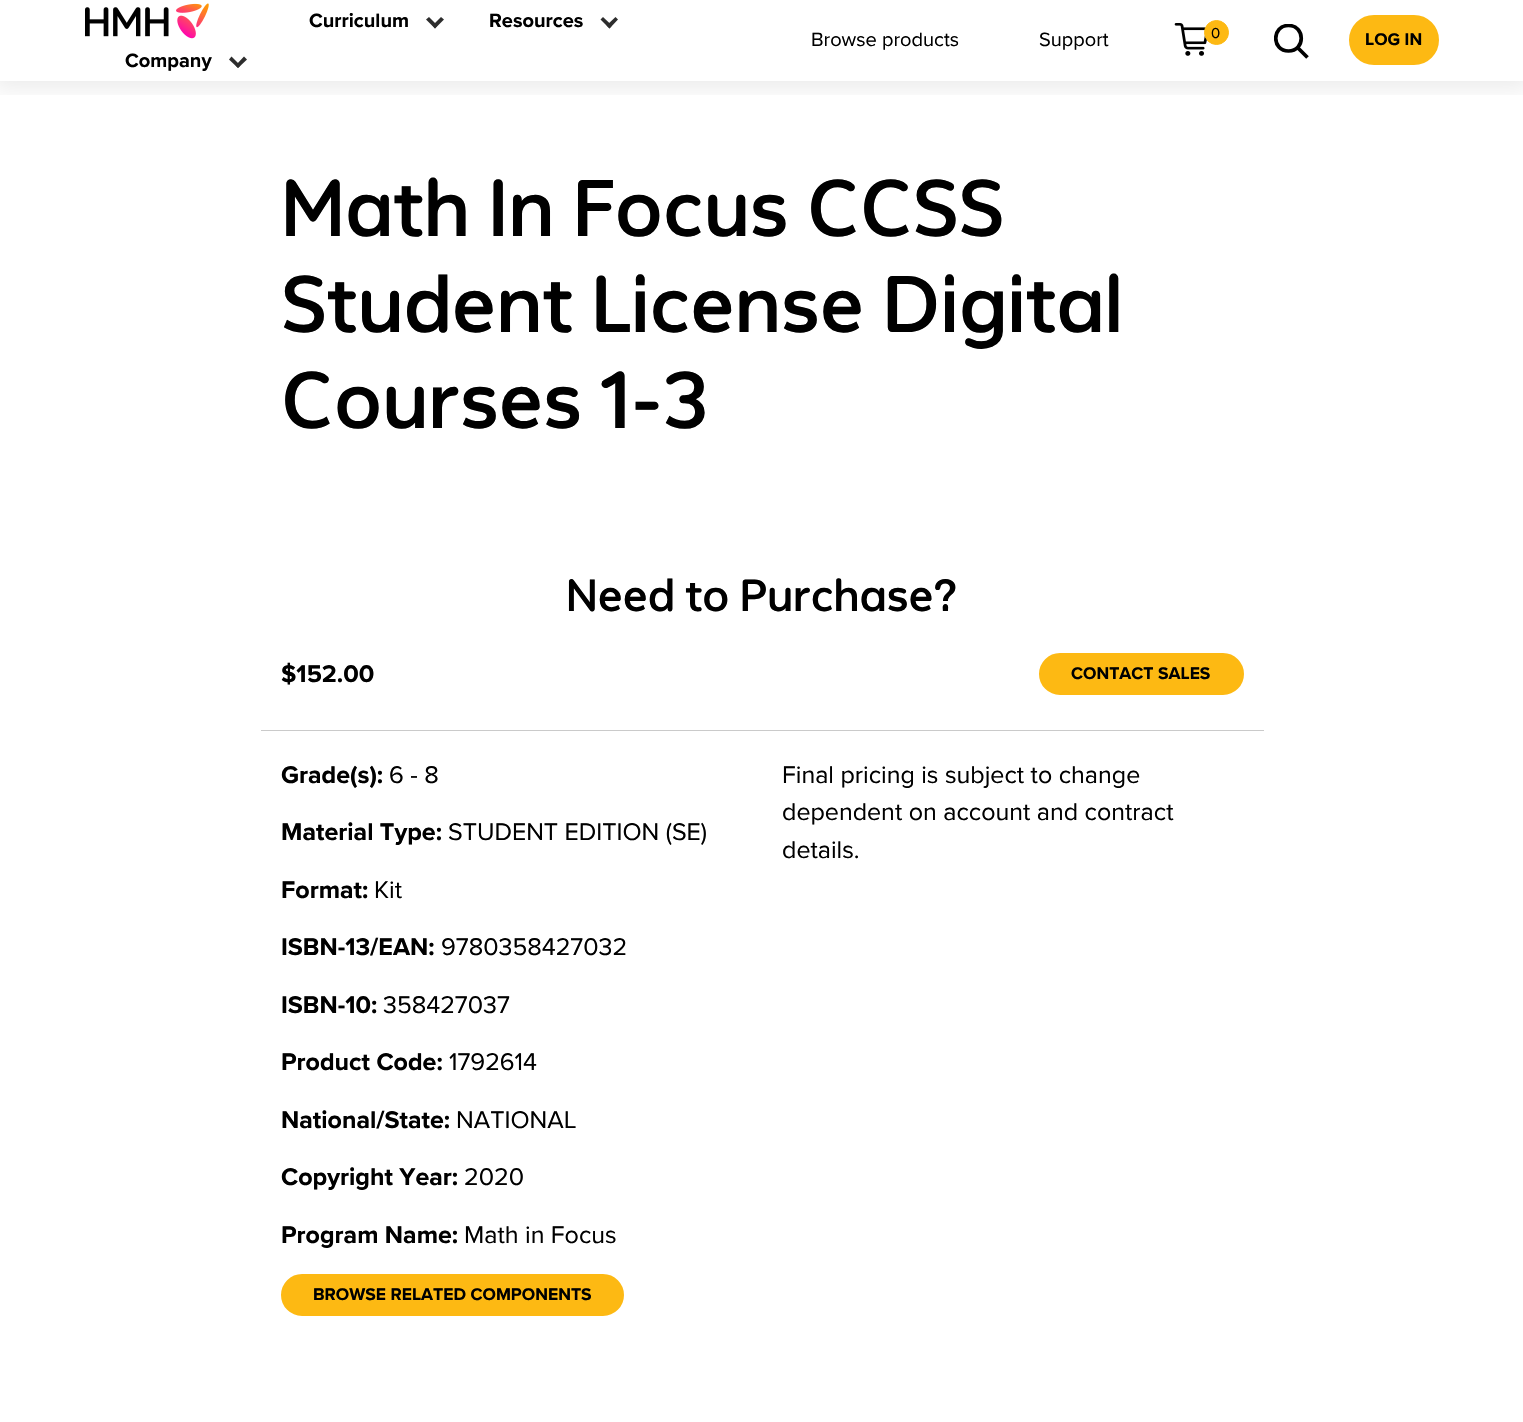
void draw(SkCanvas* canvas) {
    SkPaint paint;
    paint.setAntiAlias(true);
    canvas->clear(0xFFFFFFFF);
    canvas->save();
    canvas->clipRect(SkRect::MakeXYWH(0, 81, 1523, 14));
    paint.setColor(0x14000000);
    paint.setMaskFilter(SkMaskFilter::MakeBlur(kNormal_SkBlurStyle, 11));
    canvas->drawRect(SkRect::MakeXYWH(-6, -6, 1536, 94), paint);
    paint.setMaskFilter(nullptr);
    canvas->restore();
    canvas->drawImageRect(SkImages::DeferredFromEncodedData(SkData::MakeFromFileName("img1.png")), SkRect::MakeXYWH(85, 3, 124, 36), SkSamplingOptions());
    SkFont font1(fontMgr->matchFamilyStyle("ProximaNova", SkFontStyle::Bold()), 20);
    font1.setSubpixel(true);
    paint.setColor(0xFF000000);
    canvas->drawString("Curriculum", 309, 27, font1, paint);
    paint.setColor(0xFF2D2D2D);
    canvas->drawPath(SkPathBuilder().moveTo(444, 19.5f).lineTo(435, 28.5f).lineTo(432.5f, 25.5f).lineTo(441, 17).close().detach(), paint);
    canvas->drawPath(SkPathBuilder().moveTo(437.5f, 25.5f).lineTo(435, 28.5f).lineTo(426, 19.5f).lineTo(429, 17).close().detach(), paint);
    paint.setColor(0xFF000000);
    canvas->drawString("Resources", 489, 27, font1, paint);
    paint.setColor(0xFF2D2D2D);
    canvas->drawPath(SkPathBuilder().moveTo(618, 19.5f).lineTo(609.5f, 28.5f).lineTo(606.5f, 25.5f).lineTo(615.5f, 17).close().detach(), paint);
    canvas->drawPath(SkPathBuilder().moveTo(612, 25.5f).lineTo(609.5f, 28.5f).lineTo(600.5f, 19.5f).lineTo(603, 17).close().detach(), paint);
    paint.setColor(0xFF000000);
    canvas->drawString("Company", 125, 67, font1, paint);
    paint.setColor(0xFF2D2D2D);
    canvas->drawPath(SkPathBuilder().moveTo(247, 59.5f).lineTo(238, 68).lineTo(235.5f, 65.5f).lineTo(244, 56.5f).close().detach(), paint);
    canvas->drawPath(SkPathBuilder().moveTo(240.5f, 65.5f).lineTo(238, 68).lineTo(229, 59.5f).lineTo(231.5f, 56.5f).close().detach(), paint);
    SkFont font2(fontMgr->matchFamilyStyle("ProximaNova", SkFontStyle::Normal()), 20);
    font2.setSubpixel(true);
    paint.setColor(0xFF000000);
    canvas->drawString("Browse products", 811, 46, font2, paint);
    canvas->drawString("Support", 1039, 46, font2, paint);
    canvas->drawImageRect(SkImages::DeferredFromEncodedData(SkData::MakeFromFileName("img2.png")), SkRect::MakeXYWH(1174, 23, 33, 33), SkSamplingOptions());
    paint.setColor(0xFFFDB913);
    canvas->drawCircle(1216.5f, 32.5f, 12, paint);
    paint.setStyle(SkPaint::kStroke_Style);
    paint.setStrokeWidth(1);
    canvas->drawCircle(1216.5f, 32.5f, 12, paint);
    SkFont font3(fontMgr->matchFamilyStyle("ProximaNova", SkFontStyle::Normal()), 15);
    font3.setSubpixel(true);
    paint.setStyle(SkPaint::kFill_Style);
    paint.setColor(0xFF000000);
    canvas->drawString("0", 1211, 38, font3, paint);
    canvas->save();
    canvas->clipRect(SkRect::MakeXYWH(1274, 24, 35, 35));
    paint.setStyle(SkPaint::kStroke_Style);
    paint.setStrokeWidth(3.7f);
    paint.setStrokeCap(SkPaint::kRound_Cap);
    canvas->drawPath(SkPathBuilder().moveTo(1288.5f, 25.5f).cubicTo(1271.5f, 25.5f, 1271.5f, 51, 1288.5f, 51).cubicTo(1305.5f, 51, 1305.5f, 25.5f, 1288.5f, 25.5f).close().detach(), paint);
    canvas->restore();
    paint.setStrokeCap(SkPaint::kButt_Cap);
    canvas->drawPath(SkPathBuilder().moveTo(1297, 47).lineTo(1307.5f, 57.5f).detach(), paint);
    paint.setStyle(SkPaint::kFill_Style);
    paint.setColor(0xFFFDB913);
    canvas->drawRoundRect(SkRect::MakeXYWH(1350.5f, 16.5f, 87, 47), 23.5f, 23.5f, paint);
    paint.setStyle(SkPaint::kStroke_Style);
    paint.setStrokeWidth(3);
    canvas->drawRoundRect(SkRect::MakeXYWH(1350.5f, 16.5f, 87, 47), 23.5f, 23.5f, paint);
    SkFont font4(fontMgr->matchFamilyStyle("ProximaNova", SkFontStyle::Bold()), 17.5f);
    font4.setSubpixel(true);
    paint.setStyle(SkPaint::kFill_Style);
    paint.setColor(0xFF000000);
    canvas->drawString("LOG IN", 1365, 45, font4, paint);
    SkFont font5(fontMgr->matchFamilyStyle("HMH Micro", SkFontStyle(500, SkFontStyle::kNormal_Width, SkFontStyle::kUpright_Slant)), 80);
    font5.setSubpixel(true);
    canvas->drawString("Math In Focus CCSS", 281, 236, font5, paint);
    canvas->drawString("Student License Digital", 281, 332, font5, paint);
    canvas->drawString("Courses 1-3", 281, 428, font5, paint);
    SkFont font6(fontMgr->matchFamilyStyle("HMH Micro", SkFontStyle(500, SkFontStyle::kNormal_Width, SkFontStyle::kUpright_Slant)), 45);
    font6.setSubpixel(true);
    canvas->drawString("Need to Purchase?", 566, 611, font6, paint);
    SkFont font7(fontMgr->matchFamilyStyle("ProximaNova", SkFontStyle::Bold()), 25);
    font7.setSubpixel(true);
    canvas->drawString("$152.00", 281, 682, font7, paint);
    paint.setColor(0xFFFDB913);
    canvas->drawRoundRect(SkRect::MakeXYWH(1040.5f, 654.5f, 202, 39), 19.5f, 19.5f, paint);
    paint.setStyle(SkPaint::kStroke_Style);
    canvas->drawRoundRect(SkRect::MakeXYWH(1040.5f, 654.5f, 202, 39), 19.5f, 19.5f, paint);
    paint.setStyle(SkPaint::kFill_Style);
    paint.setColor(0xFF000000);
    canvas->drawString("CONTACT SALES", 1071, 679, font4, paint);
    paint.setColor(0xFFCACACA);
    canvas->drawRect(SkRect::MakeXYWH(261, 730, 1003, 1), paint);
    paint.setColor(0xFF000000);
    canvas->drawString("Grade(s):", 281, 783, font7, paint);
    SkFont font8(fontMgr->matchFamilyStyle("ProximaNova", SkFontStyle::Normal()), 25);
    font8.setSubpixel(true);
    canvas->drawString("6 - 8", 389, 783, font8, paint);
    canvas->drawString("Material Type:", 281, 840, font7, paint);
    canvas->drawString("STUDENT EDITION (SE)", 448, 840, font8, paint);
    canvas->drawString("Format:", 281, 898, font7, paint);
    canvas->drawString("Kit", 374, 898, font8, paint);
    canvas->drawString("ISBN-13/EAN:", 281, 955, font7, paint);
    canvas->drawString("9780358427032", 441, 955, font8, paint);
    canvas->drawString("ISBN-10:", 281, 1013, font7, paint);
    canvas->drawString("358427037", 383, 1013, font8, paint);
    canvas->drawString("Product Code:", 281, 1070, font7, paint);
    canvas->drawString("1792614", 449, 1070, font8, paint);
    canvas->drawString("National/State:", 281, 1128, font7, paint);
    canvas->drawString("NATIONAL", 456, 1128, font8, paint);
    canvas->drawString("Copyright Year:", 281, 1185, font7, paint);
    canvas->drawString("2020", 464, 1185, font8, paint);
    canvas->drawString("Program Name:", 281, 1243, font7, paint);
    canvas->drawString("Math in Focus", 464, 1243, font8, paint);
    paint.setColor(0xFFFDB913);
    canvas->drawRoundRect(SkRect::MakeXYWH(282.5f, 1275.5f, 340, 39), 19.5f, 19.5f, paint);
    paint.setStyle(SkPaint::kStroke_Style);
    canvas->drawRoundRect(SkRect::MakeXYWH(282.5f, 1275.5f, 340, 39), 19.5f, 19.5f, paint);
    paint.setStyle(SkPaint::kFill_Style);
    paint.setColor(0xFF000000);
    canvas->drawString("BROWSE RELATED COMPONENTS", 313, 1300, font4, paint);
    canvas->drawString("Final pricing is subject to change", 782, 783, font8, paint);
    canvas->drawString("dependent on account and contract", 782, 820, font8, paint);
    canvas->drawString("details.", 782, 858, font8, paint);
}
